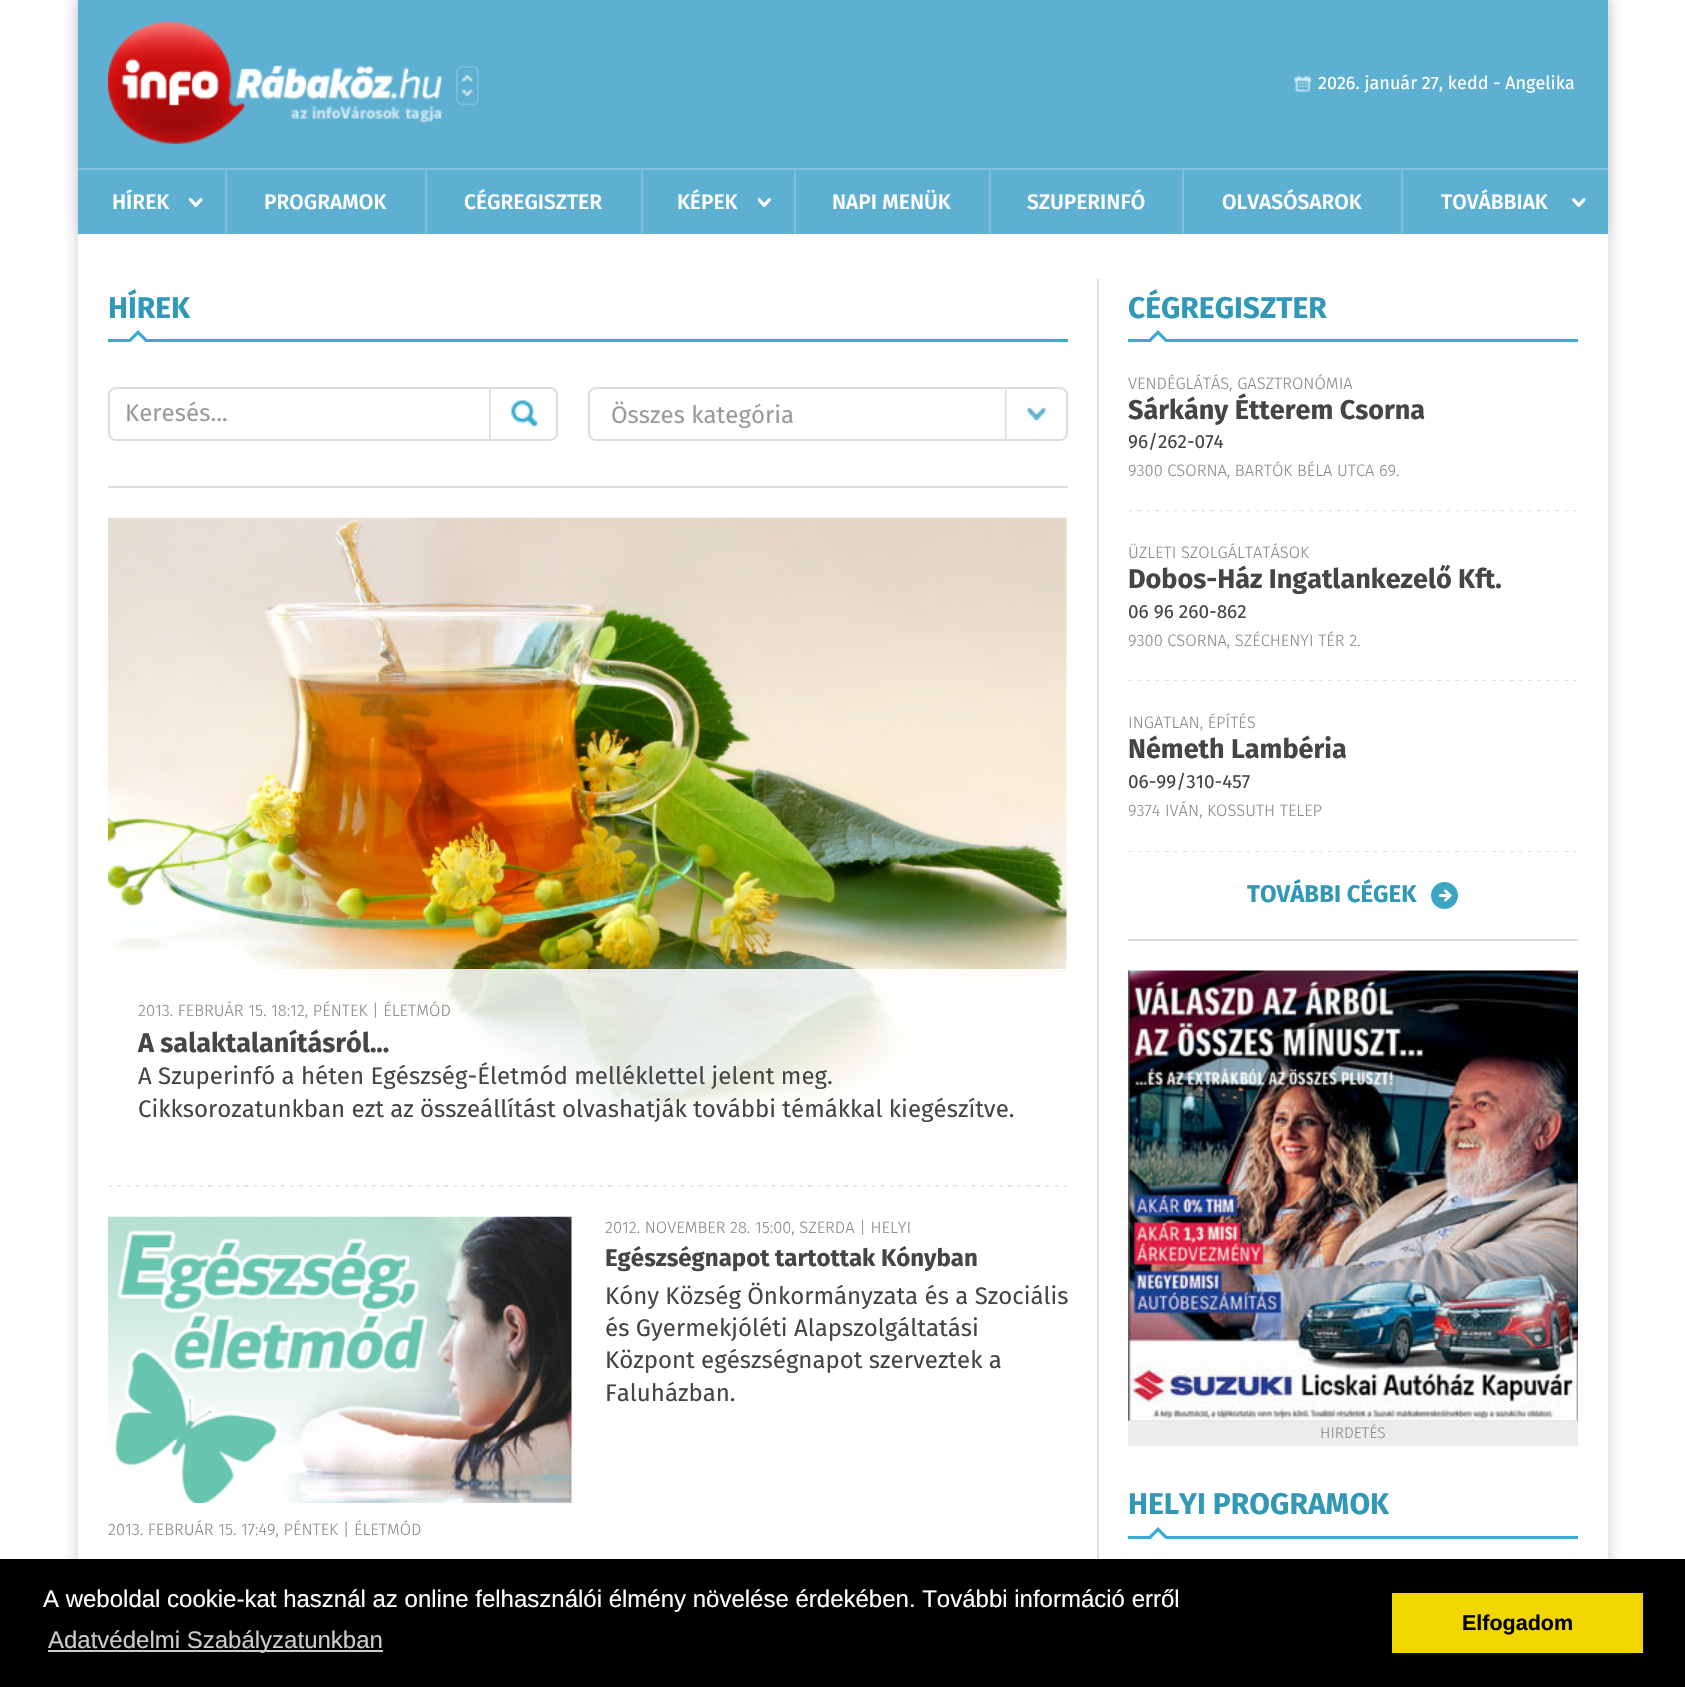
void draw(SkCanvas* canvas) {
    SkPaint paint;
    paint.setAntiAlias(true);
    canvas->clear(0xFFFFFFFF);
    canvas->save();
    canvas->clipPath(SkPathBuilder(SkPathFillType::kEvenOdd).moveTo(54, 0).lineTo(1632, 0).lineTo(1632, 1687).lineTo(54, 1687).close().moveTo(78, 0).lineTo(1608, 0).lineTo(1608, 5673).lineTo(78, 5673).close().detach(), true);
    paint.setColor(0x33000000);
    paint.setMaskFilter(SkMaskFilter::MakeBlur(kNormal_SkBlurStyle, 7.5f));
    canvas->drawRect(SkRect::MakeXYWH(78, 0, 1530, 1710), paint);
    paint.setMaskFilter(nullptr);
    canvas->restore();
    paint.setColor(0x17000000);
    paint.setMaskFilter(SkMaskFilter::MakeBlur(kNormal_SkBlurStyle, 5));
    canvas->drawRect(SkRect::MakeXYWH(78, -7, 1530, 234), paint);
    paint.setMaskFilter(nullptr);
    paint.setColor(0xFF5EB0D2);
    canvas->drawRect(SkRect::MakeXYWH(78, 0, 1530, 234), paint);
    canvas->drawImageRect(SkImages::DeferredFromEncodedData(SkData::MakeFromFileName("img1.png")), SkRect::MakeXYWH(108, 21, 335, 123), SkSamplingOptions());
    canvas->drawImageRect(SkImages::DeferredFromEncodedData(SkData::MakeFromFileName("img2.png")), SkRect::MakeXYWH(456, 66, 23, 39), SkSamplingOptions());
    canvas->drawImageRect(SkImages::DeferredFromEncodedData(SkData::MakeFromFileName("img3.png")), SkRect::MakeXYWH(1294, 76, 17, 16), SkSamplingOptions());
    SkFont font1(fontMgr->matchFamilyStyle("Fira Sans", SkFontStyle::Normal()), 18);
    font1.setSubpixel(true);
    paint.setColor(0xFFFFFFFF);
    canvas->drawString("2026. január 27, kedd - Angelika", 1318, 89, font1, paint);
    paint.setColor(0xFF7EC0DB);
    canvas->drawRect(SkRect::MakeXYWH(78, 168, 1530, 2), paint);
    canvas->drawRect(SkRect::MakeXYWH(225, 170, 2, 64), paint);
    canvas->drawImageRect(SkImages::DeferredFromEncodedData(SkData::MakeFromFileName("img4.png")), SkRect::MakeXYWH(189, 198, 14, 9), SkSamplingOptions());
    SkFont font2(fontMgr->matchFamilyStyle("Fira Sans", SkFontStyle(500, SkFontStyle::kNormal_Width, SkFontStyle::kUpright_Slant)), 21);
    font2.setSubpixel(true);
    paint.setColor(0xFFFFFFFF);
    canvas->drawString("HÍREK", 112, 209, font2, paint);
    paint.setColor(0xFF7EC0DB);
    canvas->drawRect(SkRect::MakeXYWH(425, 170, 2, 64), paint);
    paint.setColor(0xFFFFFFFF);
    canvas->drawString("PROGRAMOK", 264, 209, font2, paint);
    paint.setColor(0xFF7EC0DB);
    canvas->drawRect(SkRect::MakeXYWH(641, 170, 2, 64), paint);
    paint.setColor(0xFFFFFFFF);
    canvas->drawString("CÉGREGISZTER", 464, 209, font2, paint);
    paint.setColor(0xFF7EC0DB);
    canvas->drawRect(SkRect::MakeXYWH(794, 170, 2, 64), paint);
    canvas->drawImageRect(SkImages::DeferredFromEncodedData(SkData::MakeFromFileName("img5.png")), SkRect::MakeXYWH(758, 198, 13, 9), SkSamplingOptions());
    paint.setColor(0xFFFFFFFF);
    canvas->drawString("KÉPEK", 677, 209, font2, paint);
    paint.setColor(0xFF7EC0DB);
    canvas->drawRect(SkRect::MakeXYWH(989, 170, 2, 64), paint);
    paint.setColor(0xFFFFFFFF);
    canvas->drawString("NAPI MENÜK", 832, 209, font2, paint);
    paint.setColor(0xFF7EC0DB);
    canvas->drawRect(SkRect::MakeXYWH(1182, 170, 2, 64), paint);
    paint.setColor(0xFFFFFFFF);
    canvas->drawString("SZUPERINFÓ", 1027, 209, font2, paint);
    paint.setColor(0xFF7EC0DB);
    canvas->drawRect(SkRect::MakeXYWH(1401, 170, 2, 64), paint);
    paint.setColor(0xFFFFFFFF);
    canvas->drawString("OLVASÓSAROK", 1222, 209, font2, paint);
    canvas->drawImageRect(SkImages::DeferredFromEncodedData(SkData::MakeFromFileName("img4.png")), SkRect::MakeXYWH(1572, 198, 14, 9), SkSamplingOptions());
    canvas->drawString("TOVÁBBIAK", 1441, 209, font2, paint);
    paint.setColor(0xFFDDDDDD);
    canvas->drawRect(SkRect::MakeXYWH(1097, 279, 2, 1280), paint);
    paint.setColor(0xFF38ACD0);
    canvas->drawRect(SkRect::MakeXYWH(108, 339, 960, 3), paint);
    SkFont font3(fontMgr->matchFamilyStyle("Fira Sans", SkFontStyle::Bold()), 30);
    font3.setSubpixel(true);
    paint.setColor(0xFF3198B8);
    canvas->drawString("HÍREK", 108, 318, font3, paint);
    paint.setColor(0xFF38ACD0);
    canvas->drawPath(SkPathBuilder().moveTo(150, 342).lineTo(126, 342).lineTo(138, 330).close().detach(), paint);
    paint.setColor(0xFFFFFFFF);
    canvas->drawPath(SkPathBuilder().moveTo(145.5f, 342).lineTo(130.5f, 342).lineTo(138, 334.5f).close().detach(), paint);
    paint.setColor(0xFFDDDDDD);
    canvas->drawRect(SkRect::MakeXYWH(108, 486, 960, 2), paint);
    paint.setStyle(SkPaint::kStroke_Style);
    paint.setStrokeWidth(2);
    canvas->drawRoundRect(SkRect::MakeXYWH(109, 388, 448, 52), 7, 7, paint);
    SkFont font4(fontMgr->matchFamilyStyle("Fira Sans", SkFontStyle::Normal()), 24);
    font4.setSubpixel(true);
    paint.setStyle(SkPaint::kFill_Style);
    paint.setColor(0xFF9A9A9A);
    canvas->drawString("Keresés...", 125, 421, font4, paint);
    canvas->drawImageRect(SkImages::DeferredFromEncodedData(SkData::MakeFromFileName("img6.png")), SkRect::MakeXYWH(489, 389, 49, 50), SkSamplingOptions());
    canvas->drawImageRect(SkImages::DeferredFromEncodedData(SkData::MakeFromFileName("img7.png")), SkRect::MakeXYWH(1005, 389, 41, 50), SkSamplingOptions());
    paint.setStyle(SkPaint::kStroke_Style);
    paint.setColor(0xFFDDDDDD);
    canvas->drawRoundRect(SkRect::MakeXYWH(589, 388, 478, 52), 7, 7, paint);
    paint.setStyle(SkPaint::kFill_Style);
    paint.setColor(0xFF9A9A9A);
    canvas->drawString("Összes kategória", 611, 423, font4, paint);
    canvas->drawImageRect(SkImages::DeferredFromEncodedData(SkData::MakeFromFileName("img8.png")), SkRect::MakeXYWH(108, 1185, 960, 2), SkSamplingOptions());
    canvas->drawImageRect(SkImages::DeferredFromEncodedData(SkData::MakeFromFileName("img9.png")), SkRect::MakeXYWH(108, 517, 959, 613), SkSamplingOptions());
    paint.setColor(0xD9FFFFFF);
    canvas->drawRect(SkRect::MakeXYWH(245, 969, 822, 161), paint);
    SkFont font5(fontMgr->matchFamilyStyle("Fira Sans", SkFontStyle(300, SkFontStyle::kNormal_Width, SkFontStyle::kUpright_Slant)), 16.5f);
    font5.setSubpixel(true);
    paint.setColor(0xFF8B8B8B);
    canvas->drawString("2013. FEBRUÁR 15. 18:12, PÉNTEK | ÉLETMÓD", 138, 1016, font5, paint);
    SkFont font6(fontMgr->matchFamilyStyle("Fira Sans", SkFontStyle::Bold()), 27);
    font6.setSubpixel(true);
    paint.setColor(0xFF454545);
    canvas->drawString("A salaktalanításról...", 138, 1052, font6, paint);
    canvas->drawString("A Szuperinfó a héten Egészség-Életmód melléklettel jelent meg.", 138, 1084, font4, paint);
    canvas->drawString("Cikksorozatunkban ezt az összeállítást olvashatják további témákkal kiegészítve.", 138, 1117, font4, paint);
    paint.setColor(0xFF8B8B8B);
    canvas->drawString("2012. NOVEMBER 28. 15:00, SZERDA | HELYI", 605, 1233, font5, paint);
    SkFont font7(fontMgr->matchFamilyStyle("Fira Sans", SkFontStyle::Bold()), 24);
    font7.setSubpixel(true);
    paint.setColor(0xFF454545);
    canvas->drawString("Egészségnapot tartottak Kónyban", 605, 1266, font7, paint);
    canvas->drawString("Kóny Község Önkormányzata és a Szociális", 605, 1304, font4, paint);
    canvas->drawString("és Gyermekjóléti Alapszolgáltatási", 605, 1336, font4, paint);
    canvas->drawString("Központ egészségnapot szerveztek a", 605, 1368, font4, paint);
    canvas->drawString("Faluházban.", 605, 1401, font4, paint);
    canvas->drawImageRect(SkImages::DeferredFromEncodedData(SkData::MakeFromFileName("img10.png")), SkRect::MakeXYWH(108, 1216, 464, 287), SkSamplingOptions());
    paint.setColor(0xFF8B8B8B);
    canvas->drawString("2013. FEBRUÁR 15. 17:49, PÉNTEK | ÉLETMÓD", 108, 1535, font5, paint);
    paint.setColor(0xFF38ACD0);
    canvas->drawRect(SkRect::MakeXYWH(1128, 339, 450, 3), paint);
    paint.setColor(0xFF3198B8);
    canvas->drawString("CÉGREGISZTER", 1128, 318, font3, paint);
    paint.setColor(0xFF38ACD0);
    canvas->drawPath(SkPathBuilder().moveTo(1170, 342).lineTo(1146, 342).lineTo(1158, 330).close().detach(), paint);
    paint.setColor(0xFFFFFFFF);
    canvas->drawPath(SkPathBuilder().moveTo(1165.5f, 342).lineTo(1150.5f, 342).lineTo(1158, 334.5f).close().detach(), paint);
    canvas->drawImageRect(SkImages::DeferredFromEncodedData(SkData::MakeFromFileName("img11.png")), SkRect::MakeXYWH(1128, 510, 449, 2), SkSamplingOptions());
    paint.setColor(0xFF8B8B8B);
    canvas->drawString("VENDÉGLÁTÁS, GASZTRONÓMIA", 1128, 389, font5, paint);
    paint.setColor(0xFF454545);
    canvas->drawString("Sárkány Étterem Csorna", 1128, 419, font6, paint);
    SkFont font8(fontMgr->matchFamilyStyle("Fira Sans", SkFontStyle::Normal()), 19);
    font8.setSubpixel(true);
    canvas->drawString("96/262-074", 1128, 448, font8, paint);
    paint.setColor(0xFF8B8B8B);
    canvas->drawString("9300 CSORNA, BARTÓK BÉLA UTCA 69.", 1128, 476, font5, paint);
    canvas->drawImageRect(SkImages::DeferredFromEncodedData(SkData::MakeFromFileName("img12.png")), SkRect::MakeXYWH(1128, 680, 449, 1), SkSamplingOptions());
    canvas->drawString("ÜZLETI SZOLGÁLTATÁSOK", 1128, 558, font5, paint);
    paint.setColor(0xFF454545);
    canvas->drawString("Dobos-Ház Ingatlankezelő Kft.", 1128, 588, font6, paint);
    canvas->drawString("06 96 260-862", 1128, 618, font8, paint);
    paint.setColor(0xFF8B8B8B);
    canvas->drawString("9300 CSORNA, SZÉCHENYI TÉR 2.", 1128, 646, font5, paint);
    canvas->drawImageRect(SkImages::DeferredFromEncodedData(SkData::MakeFromFileName("img12.png")), SkRect::MakeXYWH(1128, 851, 449, 1), SkSamplingOptions());
    canvas->drawString("INGATLAN, ÉPÍTÉS", 1128, 728, font5, paint);
    paint.setColor(0xFF454545);
    canvas->drawString("Németh Lambéria", 1128, 758, font6, paint);
    canvas->drawString("06-99/310-457", 1128, 788, font8, paint);
    paint.setColor(0xFF8B8B8B);
    canvas->drawString("9374 IVÁN, KOSSUTH TELEP", 1128, 816, font5, paint);
    paint.setColor(0xFFDDDDDD);
    canvas->drawRect(SkRect::MakeXYWH(1128, 939, 450, 2), paint);
    canvas->drawImageRect(SkImages::DeferredFromEncodedData(SkData::MakeFromFileName("img13.png")), SkRect::MakeXYWH(1431, 882, 27, 27), SkSamplingOptions());
    paint.setColor(0xFF3198B8);
    canvas->drawString("TOVÁBBI CÉGEK", 1247, 902, font7, paint);
    paint.setColor(0xFFD2D2D2);
    canvas->drawRect(SkRect::MakeXYWH(1128, 1420, 450, 1), paint);
    canvas->drawImageRect(SkImages::DeferredFromEncodedData(SkData::MakeFromFileName("img14.png")), SkRect::MakeXYWH(1128, 970, 450, 451), SkSamplingOptions());
    paint.setColor(0xFFECECEC);
    canvas->drawRect(SkRect::MakeXYWH(1128, 1421, 450, 25), paint);
    SkFont font9(fontMgr->matchFamilyStyle("Fira Sans", SkFontStyle(300, SkFontStyle::kNormal_Width, SkFontStyle::kUpright_Slant)), 15.5f);
    font9.setSubpixel(true);
    paint.setColor(0xFF8B8B8B);
    canvas->drawString("HIRDETÉS", 1320, 1438, font9, paint);
    paint.setColor(0xFF38ACD0);
    canvas->drawRect(SkRect::MakeXYWH(1128, 1536, 450, 3), paint);
    paint.setColor(0xFF3198B8);
    canvas->drawString("HELYI PROGRAMOK", 1128, 1514, font3, paint);
    paint.setColor(0xFF38ACD0);
    canvas->drawPath(SkPathBuilder().moveTo(1170, 1539).lineTo(1146, 1539).lineTo(1158, 1527).close().detach(), paint);
    paint.setColor(0xFFFFFFFF);
    canvas->drawPath(SkPathBuilder().moveTo(1165.5f, 1539).lineTo(1150.5f, 1539).lineTo(1158, 1531.5f).close().detach(), paint);
    paint.setColor(0xFF000000);
    canvas->drawRect(SkRect::MakeXYWH(0, 1559, 1685, 128), paint);
    SkFont font10(fontMgr->matchFamilyStyle("Liberation Sans", SkFontStyle::Normal()), 24);
    font10.setSubpixel(true);
    paint.setColor(0xFFFFFFFF);
    canvas->drawString("A weboldal cookie-kat használ az online felhasználói élmény növelése érdekében. További információ erről", 43, 1607, font10, paint);
    paint.setColor(0xFFCCCCCC);
    canvas->drawRect(SkRect::MakeXYWH(48, 1650, 335, 2), paint);
    canvas->drawString("Adatvédelmi Szabályzatunkban", 48, 1648, font10, paint);
    paint.setColor(0xFFF1D600);
    canvas->drawRect(SkRect::MakeXYWH(1392, 1593, 251, 60), paint);
    SkFont font11(fontMgr->matchFamilyStyle("Liberation Sans", SkFontStyle::Bold()), 21.5f);
    font11.setSubpixel(true);
    paint.setColor(0xFF000000);
    canvas->drawString("Elfogadom", 1462, 1630, font11, paint);
}
